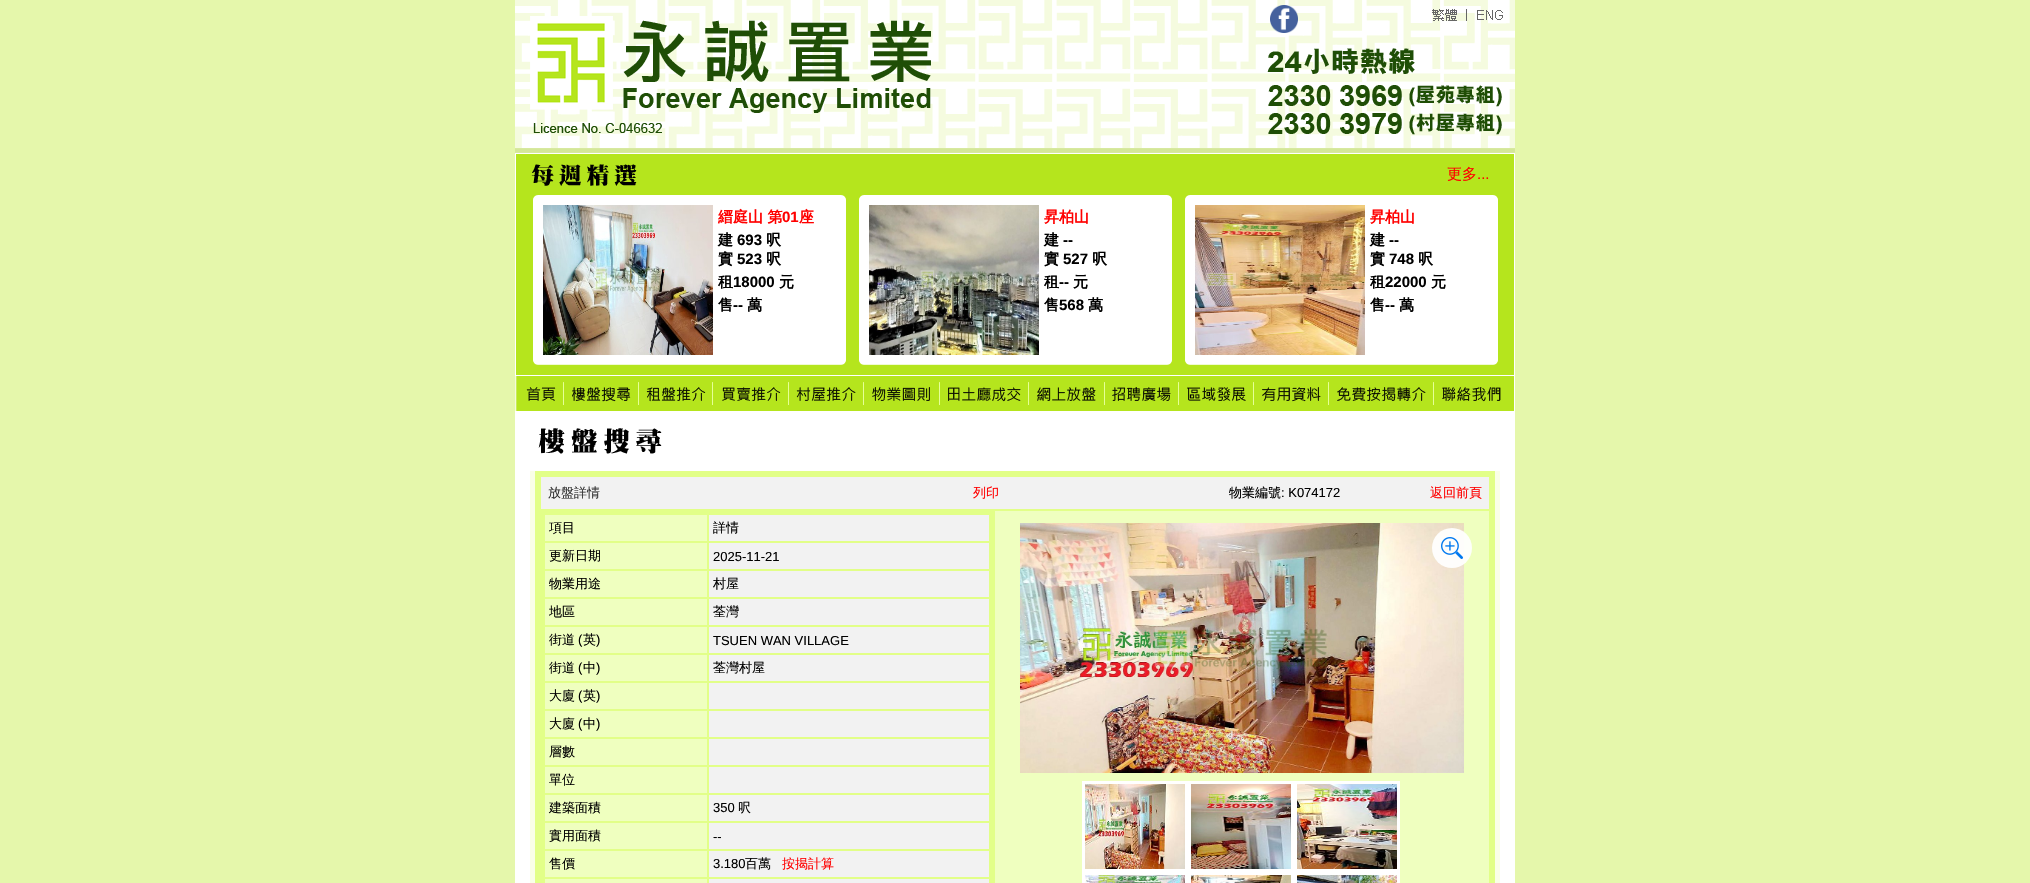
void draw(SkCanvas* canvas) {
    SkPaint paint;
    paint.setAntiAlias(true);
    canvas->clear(0xFFE5F7AB);
    paint.setColor(0xFFFFFFFF);
    canvas->drawRect(SkRect::MakeXYWH(515, 21, 1000, 862), paint);
    canvas->drawImageRect(SkImages::DeferredFromEncodedData(SkData::MakeFromFileName("img1.png")), SkRect::MakeXYWH(515, 0, 905, 153), SkSamplingOptions());
    canvas->drawImageRect(SkImages::DeferredFromEncodedData(SkData::MakeFromFileName("img2.png")), SkRect::MakeXYWH(1270, 5, 28, 28), SkSamplingOptions());
    canvas->drawImageRect(SkImages::DeferredFromEncodedData(SkData::MakeFromFileName("img3.png")), SkRect::MakeXYWH(1420, 0, 46, 24), SkSamplingOptions());
    canvas->drawImageRect(SkImages::DeferredFromEncodedData(SkData::MakeFromFileName("img4.png")), SkRect::MakeXYWH(1466, 0, 1, 21), SkSamplingOptions());
    canvas->drawImageRect(SkImages::DeferredFromEncodedData(SkData::MakeFromFileName("img5.png")), SkRect::MakeXYWH(1467, 0, 48, 24), SkSamplingOptions());
    canvas->drawImageRect(SkImages::DeferredFromEncodedData(SkData::MakeFromFileName("img6.png")), SkRect::MakeXYWH(1420, 24, 95, 80), SkSamplingOptions());
    canvas->drawImageRect(SkImages::DeferredFromEncodedData(SkData::MakeFromFileName("img7.png")), SkRect::MakeXYWH(1420, 104, 95, 49), SkSamplingOptions());
    paint.setColor(0xFFB5E51D);
    canvas->drawRect(SkRect::MakeXYWH(516, 154, 998, 221), paint);
    canvas->drawImageRect(SkImages::DeferredFromEncodedData(SkData::MakeFromFileName("img8.png")), SkRect::MakeXYWH(531, 164, 106, 22), SkSamplingOptions());
    SkFont font1(fontMgr->matchFamilyStyle("WenQuanYi Zen Hei", SkFontStyle(500, SkFontStyle::kNormal_Width, SkFontStyle::kUpright_Slant)), 15);
    font1.setSubpixel(true);
    paint.setColor(0xFFFF0000);
    canvas->drawString("更多", 1447, 179, font1, paint);
    SkFont font2(fontMgr->matchFamilyStyle("Liberation Sans", SkFontStyle::Normal()), 15);
    font2.setSubpixel(true);
    canvas->drawString("...", 1477, 179, font2, paint);
    canvas->drawImageRect(SkImages::DeferredFromEncodedData(SkData::MakeFromFileName("img9.png")), SkRect::MakeXYWH(533, 195, 313, 5), SkSamplingOptions());
    paint.setColor(0xFFFFFFFF);
    canvas->drawRect(SkRect::MakeXYWH(533, 200, 313, 160), paint);
    canvas->drawImageRect(SkImages::DeferredFromEncodedData(SkData::MakeFromFileName("img10.png")), SkRect::MakeXYWH(543, 205, 170, 150), SkSamplingOptions());
    SkFont font3(fontMgr->matchFamilyStyle("WenQuanYi Zen Hei", SkFontStyle::Bold()), 15);
    font3.setSubpixel(true);
    paint.setColor(0xFFFF0000);
    canvas->drawString("縉庭山 第", 718, 222, font3, paint);
    SkFont font4(fontMgr->matchFamilyStyle("Liberation Sans", SkFontStyle::Bold()), 15);
    font4.setSubpixel(true);
    canvas->drawString("01", 782, 222, font4, paint);
    canvas->drawString("座", 799, 222, font3, paint);
    paint.setColor(0xFF000000);
    canvas->drawString("建", 718, 245, font3, paint);
    canvas->drawString("693", 737, 245, font4, paint);
    canvas->drawString("呎", 766, 245, font3, paint);
    canvas->drawString("實", 718, 264, font3, paint);
    canvas->drawString("523", 737, 264, font4, paint);
    canvas->drawString("呎", 766, 264, font3, paint);
    canvas->drawString("租", 718, 287, font3, paint);
    canvas->drawString("18000", 733, 287, font4, paint);
    canvas->drawString("元", 779, 287, font3, paint);
    canvas->drawString("售", 718, 310, font3, paint);
    canvas->drawString("--", 733, 310, font4, paint);
    canvas->drawString("萬", 747, 310, font3, paint);
    canvas->drawImageRect(SkImages::DeferredFromEncodedData(SkData::MakeFromFileName("img11.png")), SkRect::MakeXYWH(533, 360, 313, 5), SkSamplingOptions());
    canvas->drawImageRect(SkImages::DeferredFromEncodedData(SkData::MakeFromFileName("img9.png")), SkRect::MakeXYWH(859, 195, 313, 5), SkSamplingOptions());
    paint.setColor(0xFFFFFFFF);
    canvas->drawRect(SkRect::MakeXYWH(859, 200, 313, 160), paint);
    canvas->drawImageRect(SkImages::DeferredFromEncodedData(SkData::MakeFromFileName("img12.png")), SkRect::MakeXYWH(869, 205, 170, 150), SkSamplingOptions());
    paint.setColor(0xFFFF0000);
    canvas->drawString("昇柏山", 1044, 222, font3, paint);
    paint.setColor(0xFF000000);
    canvas->drawString("建", 1044, 245, font3, paint);
    canvas->drawString("--", 1063, 245, font4, paint);
    canvas->drawString("實", 1044, 264, font3, paint);
    canvas->drawString("527", 1063, 264, font4, paint);
    canvas->drawString("呎", 1092, 264, font3, paint);
    canvas->drawString("租", 1044, 287, font3, paint);
    canvas->drawString("--", 1059, 287, font4, paint);
    canvas->drawString("元", 1073, 287, font3, paint);
    canvas->drawString("售", 1044, 310, font3, paint);
    canvas->drawString("568", 1059, 310, font4, paint);
    canvas->drawString("萬", 1088, 310, font3, paint);
    canvas->drawImageRect(SkImages::DeferredFromEncodedData(SkData::MakeFromFileName("img11.png")), SkRect::MakeXYWH(859, 360, 313, 5), SkSamplingOptions());
    canvas->drawImageRect(SkImages::DeferredFromEncodedData(SkData::MakeFromFileName("img9.png")), SkRect::MakeXYWH(1185, 195, 313, 5), SkSamplingOptions());
    paint.setColor(0xFFFFFFFF);
    canvas->drawRect(SkRect::MakeXYWH(1185, 200, 313, 160), paint);
    canvas->drawImageRect(SkImages::DeferredFromEncodedData(SkData::MakeFromFileName("img13.png")), SkRect::MakeXYWH(1195, 205, 170, 150), SkSamplingOptions());
    paint.setColor(0xFFFF0000);
    canvas->drawString("昇柏山", 1370, 222, font3, paint);
    paint.setColor(0xFF000000);
    canvas->drawString("建", 1370, 245, font3, paint);
    canvas->drawString("--", 1389, 245, font4, paint);
    canvas->drawString("實", 1370, 264, font3, paint);
    canvas->drawString("748", 1389, 264, font4, paint);
    canvas->drawString("呎", 1418, 264, font3, paint);
    canvas->drawString("租", 1370, 287, font3, paint);
    canvas->drawString("22000", 1385, 287, font4, paint);
    canvas->drawString("元", 1431, 287, font3, paint);
    canvas->drawString("售", 1370, 310, font3, paint);
    canvas->drawString("--", 1385, 310, font4, paint);
    canvas->drawString("萬", 1399, 310, font3, paint);
    canvas->drawImageRect(SkImages::DeferredFromEncodedData(SkData::MakeFromFileName("img11.png")), SkRect::MakeXYWH(1185, 360, 313, 5), SkSamplingOptions());
    canvas->drawImageRect(SkImages::DeferredFromEncodedData(SkData::MakeFromFileName("img14.png")), SkRect::MakeXYWH(515, 376, 48, 35), SkSamplingOptions());
    canvas->drawImageRect(SkImages::DeferredFromEncodedData(SkData::MakeFromFileName("img15.png")), SkRect::MakeXYWH(563, 376, 1, 35), SkSamplingOptions());
    canvas->drawImageRect(SkImages::DeferredFromEncodedData(SkData::MakeFromFileName("img16.png")), SkRect::MakeXYWH(564, 376, 74, 35), SkSamplingOptions());
    canvas->drawImageRect(SkImages::DeferredFromEncodedData(SkData::MakeFromFileName("img15.png")), SkRect::MakeXYWH(638, 376, 1, 35), SkSamplingOptions());
    canvas->drawImageRect(SkImages::DeferredFromEncodedData(SkData::MakeFromFileName("img17.png")), SkRect::MakeXYWH(639, 376, 73, 35), SkSamplingOptions());
    canvas->drawImageRect(SkImages::DeferredFromEncodedData(SkData::MakeFromFileName("img15.png")), SkRect::MakeXYWH(712, 376, 1, 35), SkSamplingOptions());
    canvas->drawImageRect(SkImages::DeferredFromEncodedData(SkData::MakeFromFileName("img18.png")), SkRect::MakeXYWH(713, 376, 75, 35), SkSamplingOptions());
    canvas->drawImageRect(SkImages::DeferredFromEncodedData(SkData::MakeFromFileName("img15.png")), SkRect::MakeXYWH(788, 376, 1, 35), SkSamplingOptions());
    canvas->drawImageRect(SkImages::DeferredFromEncodedData(SkData::MakeFromFileName("img19.png")), SkRect::MakeXYWH(789, 376, 74, 35), SkSamplingOptions());
    canvas->drawImageRect(SkImages::DeferredFromEncodedData(SkData::MakeFromFileName("img15.png")), SkRect::MakeXYWH(863, 376, 1, 35), SkSamplingOptions());
    canvas->drawImageRect(SkImages::DeferredFromEncodedData(SkData::MakeFromFileName("img20.png")), SkRect::MakeXYWH(864, 376, 75, 35), SkSamplingOptions());
    canvas->drawImageRect(SkImages::DeferredFromEncodedData(SkData::MakeFromFileName("img15.png")), SkRect::MakeXYWH(939, 376, 1, 35), SkSamplingOptions());
    canvas->drawImageRect(SkImages::DeferredFromEncodedData(SkData::MakeFromFileName("img21.png")), SkRect::MakeXYWH(940, 376, 88, 35), SkSamplingOptions());
    canvas->drawImageRect(SkImages::DeferredFromEncodedData(SkData::MakeFromFileName("img15.png")), SkRect::MakeXYWH(1028, 376, 1, 35), SkSamplingOptions());
    canvas->drawImageRect(SkImages::DeferredFromEncodedData(SkData::MakeFromFileName("img22.png")), SkRect::MakeXYWH(1029, 376, 75, 35), SkSamplingOptions());
    canvas->drawImageRect(SkImages::DeferredFromEncodedData(SkData::MakeFromFileName("img15.png")), SkRect::MakeXYWH(1104, 376, 1, 35), SkSamplingOptions());
    canvas->drawImageRect(SkImages::DeferredFromEncodedData(SkData::MakeFromFileName("img23.png")), SkRect::MakeXYWH(1105, 376, 73, 35), SkSamplingOptions());
    canvas->drawImageRect(SkImages::DeferredFromEncodedData(SkData::MakeFromFileName("img15.png")), SkRect::MakeXYWH(1178, 376, 1, 35), SkSamplingOptions());
    canvas->drawImageRect(SkImages::DeferredFromEncodedData(SkData::MakeFromFileName("img24.png")), SkRect::MakeXYWH(1179, 376, 74, 35), SkSamplingOptions());
    canvas->drawImageRect(SkImages::DeferredFromEncodedData(SkData::MakeFromFileName("img15.png")), SkRect::MakeXYWH(1253, 376, 1, 35), SkSamplingOptions());
    canvas->drawImageRect(SkImages::DeferredFromEncodedData(SkData::MakeFromFileName("img25.png")), SkRect::MakeXYWH(1254, 376, 74, 35), SkSamplingOptions());
    canvas->drawImageRect(SkImages::DeferredFromEncodedData(SkData::MakeFromFileName("img15.png")), SkRect::MakeXYWH(1328, 376, 1, 35), SkSamplingOptions());
    canvas->drawImageRect(SkImages::DeferredFromEncodedData(SkData::MakeFromFileName("img26.png")), SkRect::MakeXYWH(1329, 376, 104, 35), SkSamplingOptions());
    canvas->drawImageRect(SkImages::DeferredFromEncodedData(SkData::MakeFromFileName("img15.png")), SkRect::MakeXYWH(1433, 376, 1, 35), SkSamplingOptions());
    canvas->drawImageRect(SkImages::DeferredFromEncodedData(SkData::MakeFromFileName("img27.png")), SkRect::MakeXYWH(1434, 376, 80, 35), SkSamplingOptions());
    canvas->drawImageRect(SkImages::DeferredFromEncodedData(SkData::MakeFromFileName("img28.png")), SkRect::MakeXYWH(538, 428, 124, 26), SkSamplingOptions());
    paint.setColor(0xFFFAFFE8);
    canvas->drawRect(SkRect::MakeXYWH(530, 471, 970, 412), paint);
    paint.setColor(0xFFE2FF88);
    canvas->drawRect(SkRect::MakeXYWH(535, 471, 960, 412), paint);
    paint.setColor(0xFFF2F2F2);
    canvas->drawRect(SkRect::MakeXYWH(541, 477, 948, 32), paint);
    SkFont font5(fontMgr->matchFamilyStyle("WenQuanYi Zen Hei", SkFontStyle(500, SkFontStyle::kNormal_Width, SkFontStyle::kUpright_Slant)), 13);
    font5.setSubpixel(true);
    paint.setColor(0xFF333333);
    canvas->drawString("放盤詳情", 548, 497, font5, paint);
    paint.setColor(0xFFFF0000);
    canvas->drawString("列印", 973, 497, font5, paint);
    paint.setColor(0xFF000000);
    canvas->drawString("物業編號", 1229, 497, font5, paint);
    SkFont font6(fontMgr->matchFamilyStyle("Liberation Sans", SkFontStyle::Normal()), 13);
    font6.setSubpixel(true);
    canvas->drawString(": K074172", 1281, 497, font6, paint);
    paint.setColor(0xFFFF0000);
    canvas->drawString("返回前頁", 1430, 497, font5, paint);
    paint.setColor(0xFFF2F2F2);
    canvas->drawRect(SkRect::MakeXYWH(709, 515, 280, 368), paint);
    paint.setColor(0xFFEFFFBF);
    canvas->drawRect(SkRect::MakeXYWH(545, 515, 162, 26), paint);
    paint.setColor(0xFF000000);
    canvas->drawString("項目", 549, 532, font5, paint);
    paint.setStyle(SkPaint::kStroke_Style);
    paint.setStrokeWidth(1);
    paint.setColor(0xFFE2FF88);
    canvas->drawRect(SkRect::MakeXYWH(708.5f, 514.5f, 281, 27), paint);
    paint.setStyle(SkPaint::kFill_Style);
    paint.setColor(0xFF000000);
    canvas->drawString("詳情", 713, 532, font5, paint);
    paint.setColor(0xFFEFFFBF);
    canvas->drawRect(SkRect::MakeXYWH(545, 543, 162, 26), paint);
    paint.setColor(0xFF000000);
    canvas->drawString("更新日期", 549, 560, font5, paint);
    paint.setStyle(SkPaint::kStroke_Style);
    paint.setColor(0xFFE2FF88);
    canvas->drawRect(SkRect::MakeXYWH(708.5f, 542.5f, 281, 27), paint);
    paint.setStyle(SkPaint::kFill_Style);
    paint.setColor(0xFF000000);
    canvas->drawString("2025-11-21", 713, 561, font6, paint);
    paint.setColor(0xFFEFFFBF);
    canvas->drawRect(SkRect::MakeXYWH(545, 571, 162, 26), paint);
    paint.setColor(0xFF000000);
    canvas->drawString("物業用途", 549, 588, font5, paint);
    paint.setStyle(SkPaint::kStroke_Style);
    paint.setColor(0xFFE2FF88);
    canvas->drawRect(SkRect::MakeXYWH(708.5f, 570.5f, 281, 27), paint);
    paint.setStyle(SkPaint::kFill_Style);
    paint.setColor(0xFF000000);
    canvas->drawString("村屋", 713, 588, font5, paint);
    paint.setColor(0xFFEFFFBF);
    canvas->drawRect(SkRect::MakeXYWH(545, 599, 162, 26), paint);
    paint.setColor(0xFF000000);
    canvas->drawString("地區", 549, 616, font5, paint);
    paint.setStyle(SkPaint::kStroke_Style);
    paint.setColor(0xFFE2FF88);
    canvas->drawRect(SkRect::MakeXYWH(708.5f, 598.5f, 281, 27), paint);
    paint.setStyle(SkPaint::kFill_Style);
    paint.setColor(0xFF000000);
    canvas->drawString("荃灣", 713, 616, font5, paint);
    paint.setColor(0xFFEFFFBF);
    canvas->drawRect(SkRect::MakeXYWH(545, 627, 162, 26), paint);
    paint.setColor(0xFF000000);
    canvas->drawString("街道", 549, 644, font5, paint);
    canvas->drawString("(", 578, 644, font6, paint);
    canvas->drawString("英", 583, 644, font5, paint);
    canvas->drawString(")", 596, 644, font6, paint);
    paint.setStyle(SkPaint::kStroke_Style);
    paint.setColor(0xFFE2FF88);
    canvas->drawRect(SkRect::MakeXYWH(708.5f, 626.5f, 281, 27), paint);
    paint.setStyle(SkPaint::kFill_Style);
    paint.setColor(0xFF000000);
    canvas->drawString("TSUEN WAN VILLAGE", 713, 645, font6, paint);
    paint.setColor(0xFFEFFFBF);
    canvas->drawRect(SkRect::MakeXYWH(545, 655, 162, 26), paint);
    paint.setColor(0xFF000000);
    canvas->drawString("街道", 549, 672, font5, paint);
    canvas->drawString("(", 578, 672, font6, paint);
    canvas->drawString("中", 583, 672, font5, paint);
    canvas->drawString(")", 596, 672, font6, paint);
    paint.setStyle(SkPaint::kStroke_Style);
    paint.setColor(0xFFE2FF88);
    canvas->drawRect(SkRect::MakeXYWH(708.5f, 654.5f, 281, 27), paint);
    paint.setStyle(SkPaint::kFill_Style);
    paint.setColor(0xFF000000);
    canvas->drawString("荃灣村屋", 713, 672, font5, paint);
    paint.setColor(0xFFEFFFBF);
    canvas->drawRect(SkRect::MakeXYWH(545, 683, 162, 26), paint);
    paint.setColor(0xFF000000);
    canvas->drawString("大廈", 549, 700, font5, paint);
    canvas->drawString("(", 578, 700, font6, paint);
    canvas->drawString("英", 583, 700, font5, paint);
    canvas->drawString(")", 596, 700, font6, paint);
    paint.setStyle(SkPaint::kStroke_Style);
    paint.setColor(0xFFE2FF88);
    canvas->drawRect(SkRect::MakeXYWH(708.5f, 682.5f, 281, 27), paint);
    paint.setStyle(SkPaint::kFill_Style);
    paint.setColor(0xFFEFFFBF);
    canvas->drawRect(SkRect::MakeXYWH(545, 711, 162, 26), paint);
    paint.setColor(0xFF000000);
    canvas->drawString("大廈", 549, 728, font5, paint);
    canvas->drawString("(", 578, 728, font6, paint);
    canvas->drawString("中", 583, 728, font5, paint);
    canvas->drawString(")", 596, 728, font6, paint);
    paint.setStyle(SkPaint::kStroke_Style);
    paint.setColor(0xFFE2FF88);
    canvas->drawRect(SkRect::MakeXYWH(708.5f, 710.5f, 281, 27), paint);
    paint.setStyle(SkPaint::kFill_Style);
    paint.setColor(0xFFEFFFBF);
    canvas->drawRect(SkRect::MakeXYWH(545, 739, 162, 26), paint);
    paint.setColor(0xFF000000);
    canvas->drawString("層數", 549, 756, font5, paint);
    paint.setStyle(SkPaint::kStroke_Style);
    paint.setColor(0xFFE2FF88);
    canvas->drawRect(SkRect::MakeXYWH(708.5f, 738.5f, 281, 27), paint);
    paint.setStyle(SkPaint::kFill_Style);
    paint.setColor(0xFFEFFFBF);
    canvas->drawRect(SkRect::MakeXYWH(545, 767, 162, 26), paint);
    paint.setColor(0xFF000000);
    canvas->drawString("單位", 549, 784, font5, paint);
    paint.setStyle(SkPaint::kStroke_Style);
    paint.setColor(0xFFE2FF88);
    canvas->drawRect(SkRect::MakeXYWH(708.5f, 766.5f, 281, 27), paint);
    paint.setStyle(SkPaint::kFill_Style);
    paint.setColor(0xFFEFFFBF);
    canvas->drawRect(SkRect::MakeXYWH(545, 795, 162, 26), paint);
    paint.setColor(0xFF000000);
    canvas->drawString("建築面積", 549, 812, font5, paint);
    paint.setStyle(SkPaint::kStroke_Style);
    paint.setColor(0xFFE2FF88);
    canvas->drawRect(SkRect::MakeXYWH(708.5f, 794.5f, 281, 27), paint);
    paint.setStyle(SkPaint::kFill_Style);
    paint.setColor(0xFF000000);
    canvas->drawString("350", 713, 812, font6, paint);
    canvas->drawString("呎", 738, 812, font5, paint);
    paint.setColor(0xFFEFFFBF);
    canvas->drawRect(SkRect::MakeXYWH(545, 823, 162, 26), paint);
    paint.setColor(0xFF000000);
    canvas->drawString("實用面積", 549, 840, font5, paint);
    paint.setStyle(SkPaint::kStroke_Style);
    paint.setColor(0xFFE2FF88);
    canvas->drawRect(SkRect::MakeXYWH(708.5f, 822.5f, 281, 27), paint);
    paint.setStyle(SkPaint::kFill_Style);
    paint.setColor(0xFF000000);
    canvas->drawString("--", 713, 841, font6, paint);
    paint.setColor(0xFFEFFFBF);
    canvas->drawRect(SkRect::MakeXYWH(545, 851, 162, 26), paint);
    paint.setColor(0xFF000000);
    canvas->drawString("售價", 549, 868, font5, paint);
    paint.setStyle(SkPaint::kStroke_Style);
    paint.setColor(0xFFE2FF88);
    canvas->drawRect(SkRect::MakeXYWH(708.5f, 850.5f, 281, 27), paint);
    paint.setStyle(SkPaint::kFill_Style);
    paint.setColor(0xFF000000);
    canvas->drawString("3.180", 713, 868, font6, paint);
    canvas->drawString("百萬", 745, 868, font5, paint);
    paint.setColor(0xFFFF0000);
    canvas->drawString("按揭計算", 782, 868, font5, paint);
    paint.setColor(0xFFEFFFBF);
    canvas->drawRect(SkRect::MakeXYWH(544.5f, 878.5f, 163, 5), paint);
    paint.setStyle(SkPaint::kStroke_Style);
    paint.setColor(0xFFE2FF88);
    canvas->drawRect(SkRect::MakeXYWH(544.5f, 878.5f, 163, 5), paint);
    canvas->drawRect(SkRect::MakeXYWH(708.5f, 878.5f, 281, 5), paint);
    paint.setStyle(SkPaint::kFill_Style);
    paint.setColor(0xFFEFFFBF);
    canvas->drawRect(SkRect::MakeXYWH(995, 511, 494, 372), paint);
    canvas->drawImageRect(SkImages::DeferredFromEncodedData(SkData::MakeFromFileName("img29.png")), SkRect::MakeXYWH(1020, 523, 444, 250), SkSamplingOptions());
    paint.setColor(0xEBFFFFFF);
    canvas->drawCircle(1452, 548, 20, paint);
    canvas->drawImageRect(SkImages::DeferredFromEncodedData(SkData::MakeFromFileName("img30.png")), SkRect::MakeXYWH(1441, 537, 22, 22), SkSamplingOptions());
    paint.setStyle(SkPaint::kStroke_Style);
    paint.setStrokeWidth(3);
    paint.setColor(0xFFFFFFFF);
    canvas->drawRect(SkRect::MakeXYWH(1083.5f, 782.5f, 103, 88), paint);
    canvas->drawImageRect(SkImages::DeferredFromEncodedData(SkData::MakeFromFileName("img31.png")), SkRect::MakeXYWH(1085, 784, 100, 85), SkSamplingOptions());
    canvas->drawRect(SkRect::MakeXYWH(1189.5f, 782.5f, 103, 88), paint);
    canvas->drawImageRect(SkImages::DeferredFromEncodedData(SkData::MakeFromFileName("img32.png")), SkRect::MakeXYWH(1191, 784, 100, 85), SkSamplingOptions());
    canvas->drawRect(SkRect::MakeXYWH(1295.5f, 782.5f, 103, 88), paint);
    canvas->drawImageRect(SkImages::DeferredFromEncodedData(SkData::MakeFromFileName("img33.png")), SkRect::MakeXYWH(1297, 784, 100, 85), SkSamplingOptions());
    canvas->drawRect(SkRect::MakeXYWH(1083.5f, 873.5f, 103, 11), paint);
    canvas->drawImageRect(SkImages::DeferredFromEncodedData(SkData::MakeFromFileName("img34.png")), SkRect::MakeXYWH(1085, 875, 100, 8), SkSamplingOptions());
    canvas->drawRect(SkRect::MakeXYWH(1189.5f, 873.5f, 103, 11), paint);
    canvas->drawImageRect(SkImages::DeferredFromEncodedData(SkData::MakeFromFileName("img35.png")), SkRect::MakeXYWH(1191, 875, 100, 8), SkSamplingOptions());
    canvas->drawRect(SkRect::MakeXYWH(1295.5f, 873.5f, 103, 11), paint);
    canvas->drawImageRect(SkImages::DeferredFromEncodedData(SkData::MakeFromFileName("img36.png")), SkRect::MakeXYWH(1297, 875, 100, 8), SkSamplingOptions());
}
